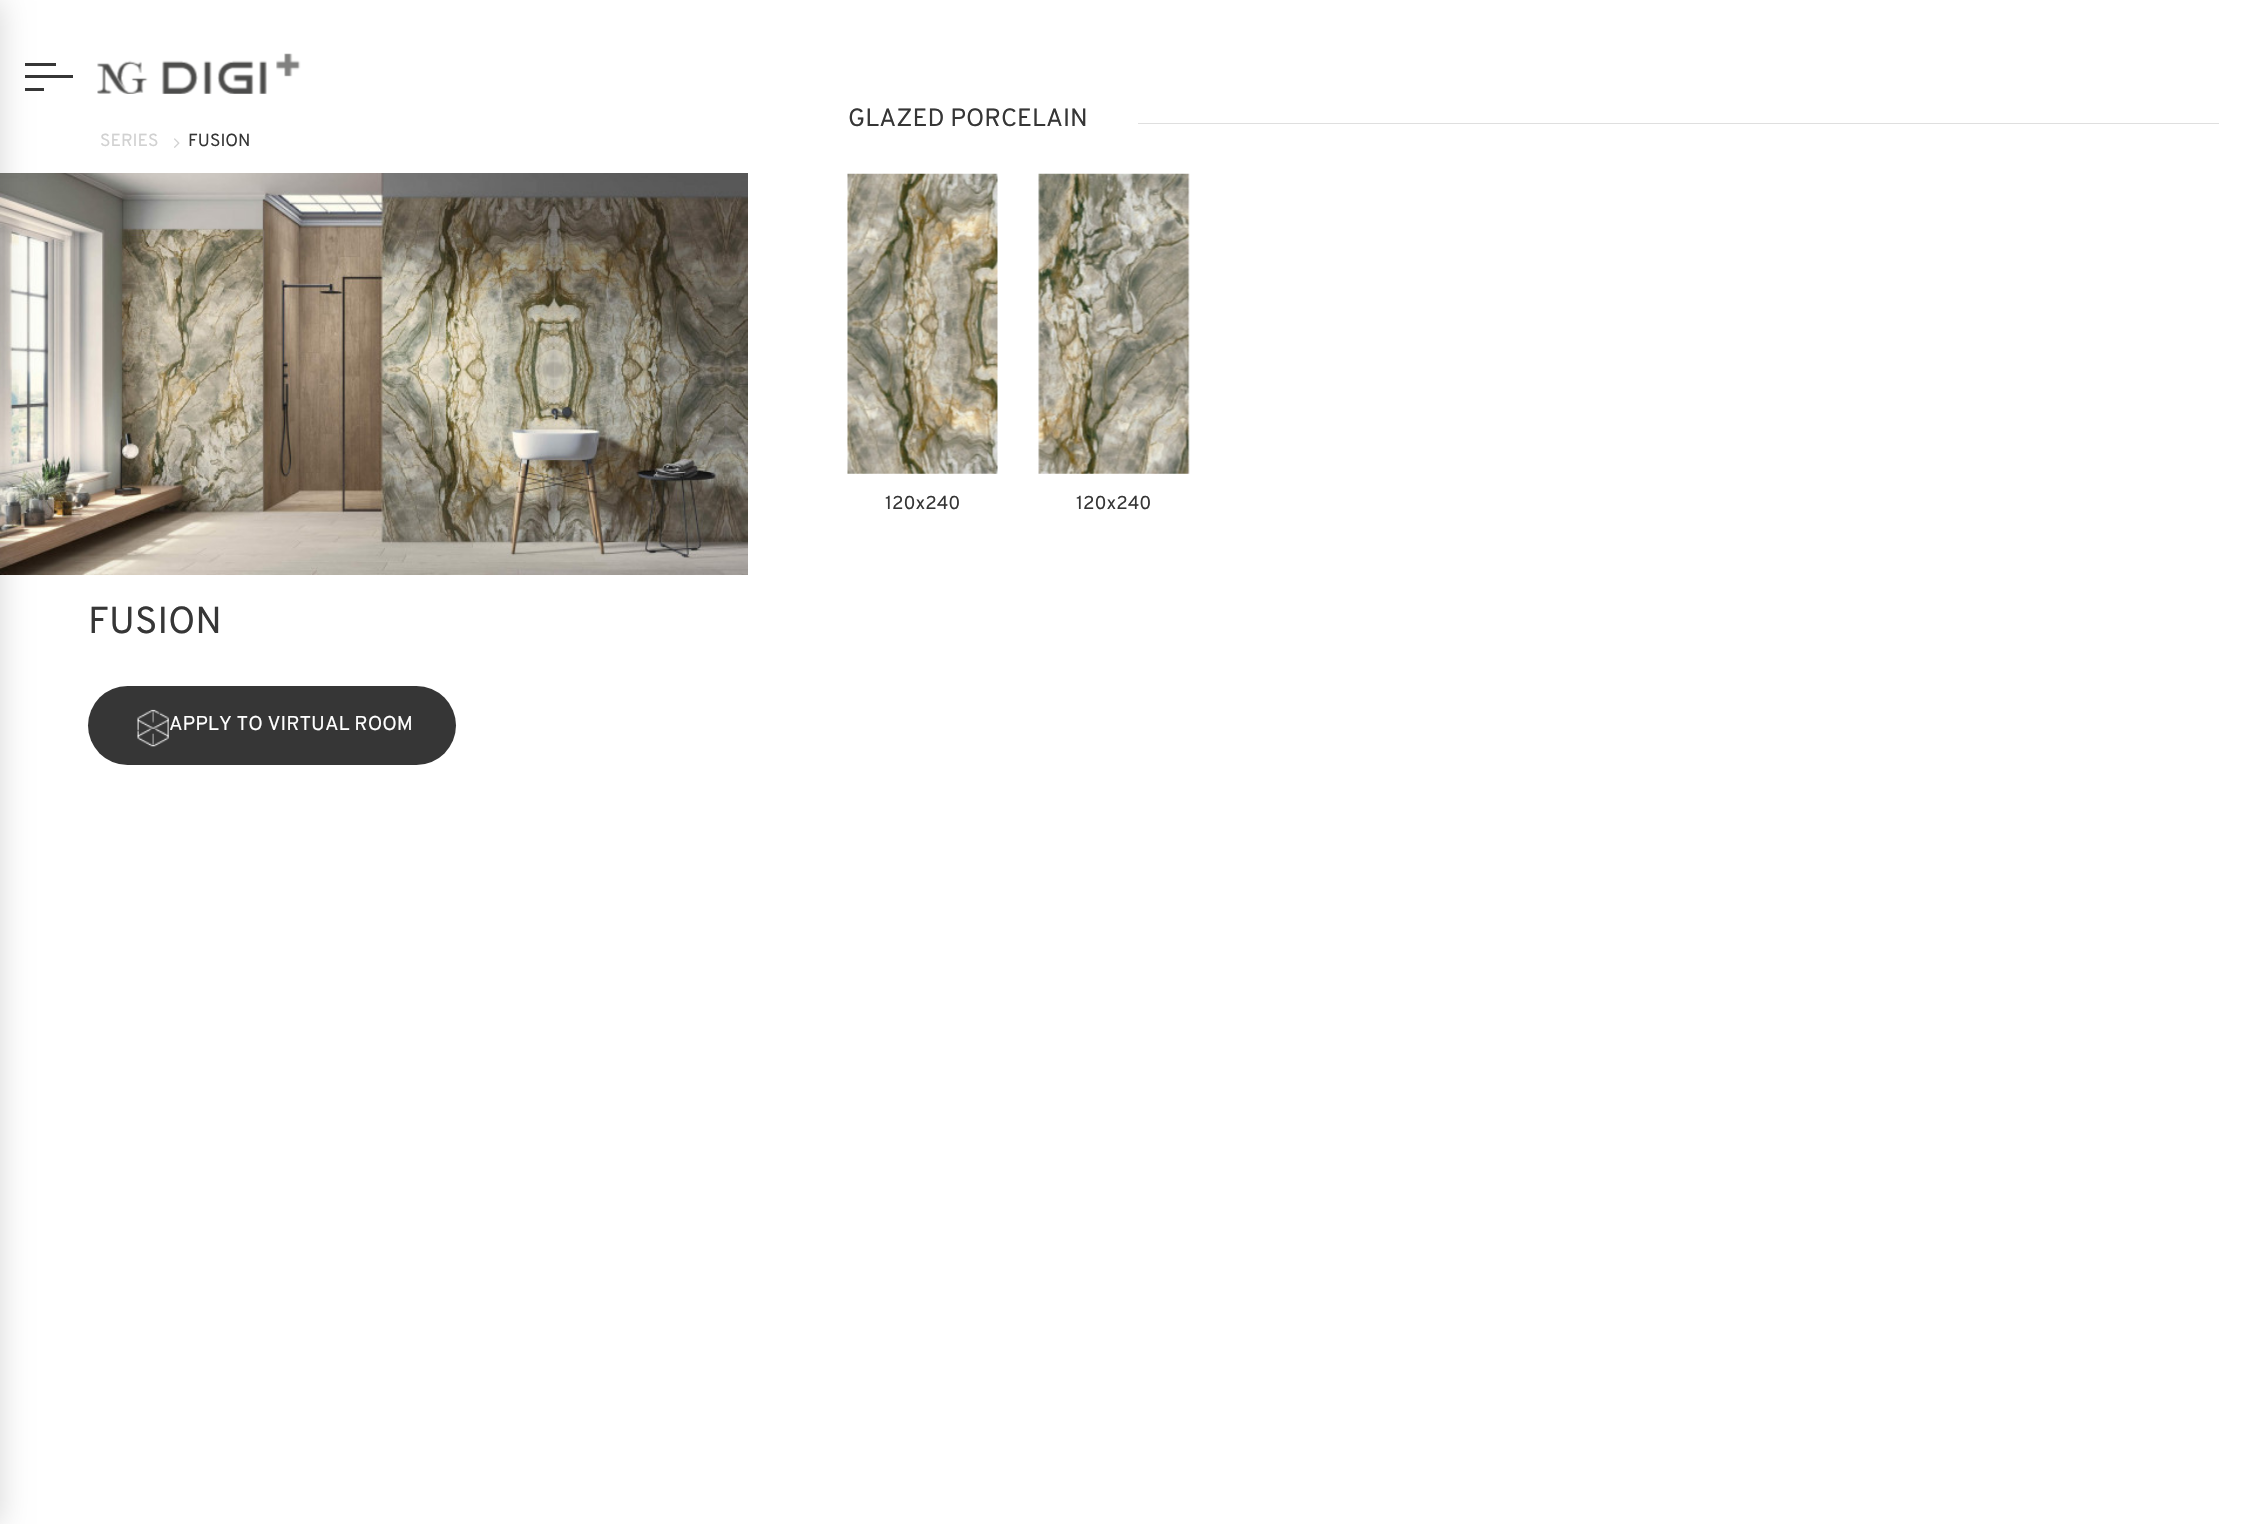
void draw(SkCanvas* canvas) {
    SkPaint paint;
    paint.setAntiAlias(true);
    canvas->clear(0xFFFFFFFF);
    paint.setColor(0xFF363636);
    canvas->drawRect(SkRect::MakeXYWH(25, 63, 31, 3), paint);
    canvas->drawRect(SkRect::MakeXYWH(25, 75, 48, 3), paint);
    canvas->drawRect(SkRect::MakeXYWH(25, 88, 19, 3), paint);
    canvas->drawImageRect(SkImages::DeferredFromEncodedData(SkData::MakeFromFileName("img5.png")), SkRect::MakeXYWH(0, 173, 748, 402), SkSamplingOptions());
    paint.setColor(0x29000000);
    paint.setMaskFilter(SkMaskFilter::MakeBlur(kNormal_SkBlurStyle, 15.5f));
    canvas->drawRect(SkRect::MakeXYWH(-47, 1, 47, 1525), paint);
    paint.setMaskFilter(nullptr);
    canvas->drawImageRect(SkImages::DeferredFromEncodedData(SkData::MakeFromFileName("img1.png")), SkRect::MakeXYWH(97, 60, 170, 34), SkSamplingOptions());
    canvas->drawImageRect(SkImages::DeferredFromEncodedData(SkData::MakeFromFileName("img2.png")), SkRect::MakeXYWH(276, 53, 25, 24), SkSamplingOptions());
    paint.setColor(0xFFDFDFDF);
    canvas->drawRect(SkRect::MakeXYWH(1138, 123, 1081, 1), paint);
    SkFont font1(fontMgr->matchFamilyStyle("Overpass", SkFontStyle::Normal()), 25);
    font1.setSubpixel(true);
    paint.setColor(0xFF363636);
    canvas->drawString("GLAZED PORCELAIN", 848, 126, font1, paint);
    canvas->drawImageRect(SkImages::DeferredFromEncodedData(SkData::MakeFromFileName("img3.png")), SkRect::MakeXYWH(847, 173, 151, 301), SkSamplingOptions());
    SkFont font2(fontMgr->matchFamilyStyle("Overpass", SkFontStyle::Normal()), 18.75f);
    font2.setSubpixel(true);
    canvas->drawString("120x240", 885, 509, font2, paint);
    canvas->drawImageRect(SkImages::DeferredFromEncodedData(SkData::MakeFromFileName("img4.png")), SkRect::MakeXYWH(1038, 173, 152, 301), SkSamplingOptions());
    canvas->drawString("120x240", 1076, 509, font2, paint);
    SkFont font3(fontMgr->matchFamilyStyle("Overpass", SkFontStyle::Normal()), 37.5f);
    font3.setSubpixel(true);
    canvas->drawString("FUSION", 88, 633, font3, paint);
    canvas->drawRoundRect(SkRect::MakeXYWH(88, 686, 368, 79), 39.5f, 39.5f, paint);
    canvas->drawImageRect(SkImages::DeferredFromEncodedData(SkData::MakeFromFileName("img6.png")), SkRect::MakeXYWH(137, 709, 32, 38), SkSamplingOptions());
    SkFont font4(fontMgr->matchFamilyStyle("Overpass", SkFontStyle::Normal()), 20);
    font4.setSubpixel(true);
    paint.setColor(0xFFFFFFFF);
    canvas->drawString("APPLY TO VIRTUAL ROOM", 169, 730, font4, paint);
    SkFont font5(fontMgr->matchFamilyStyle("Overpass", SkFontStyle::Normal()), 17.5f);
    font5.setSubpixel(true);
    paint.setColor(0xFFD1D1D1);
    canvas->drawString("SERIES", 100, 146, font5, paint);
    canvas->drawImageRect(SkImages::DeferredFromEncodedData(SkData::MakeFromFileName("img7.png")), SkRect::MakeXYWH(174, 138, 6, 10), SkSamplingOptions());
    paint.setColor(0xFF363636);
    canvas->drawString("FUSION", 188, 146, font5, paint);
}
